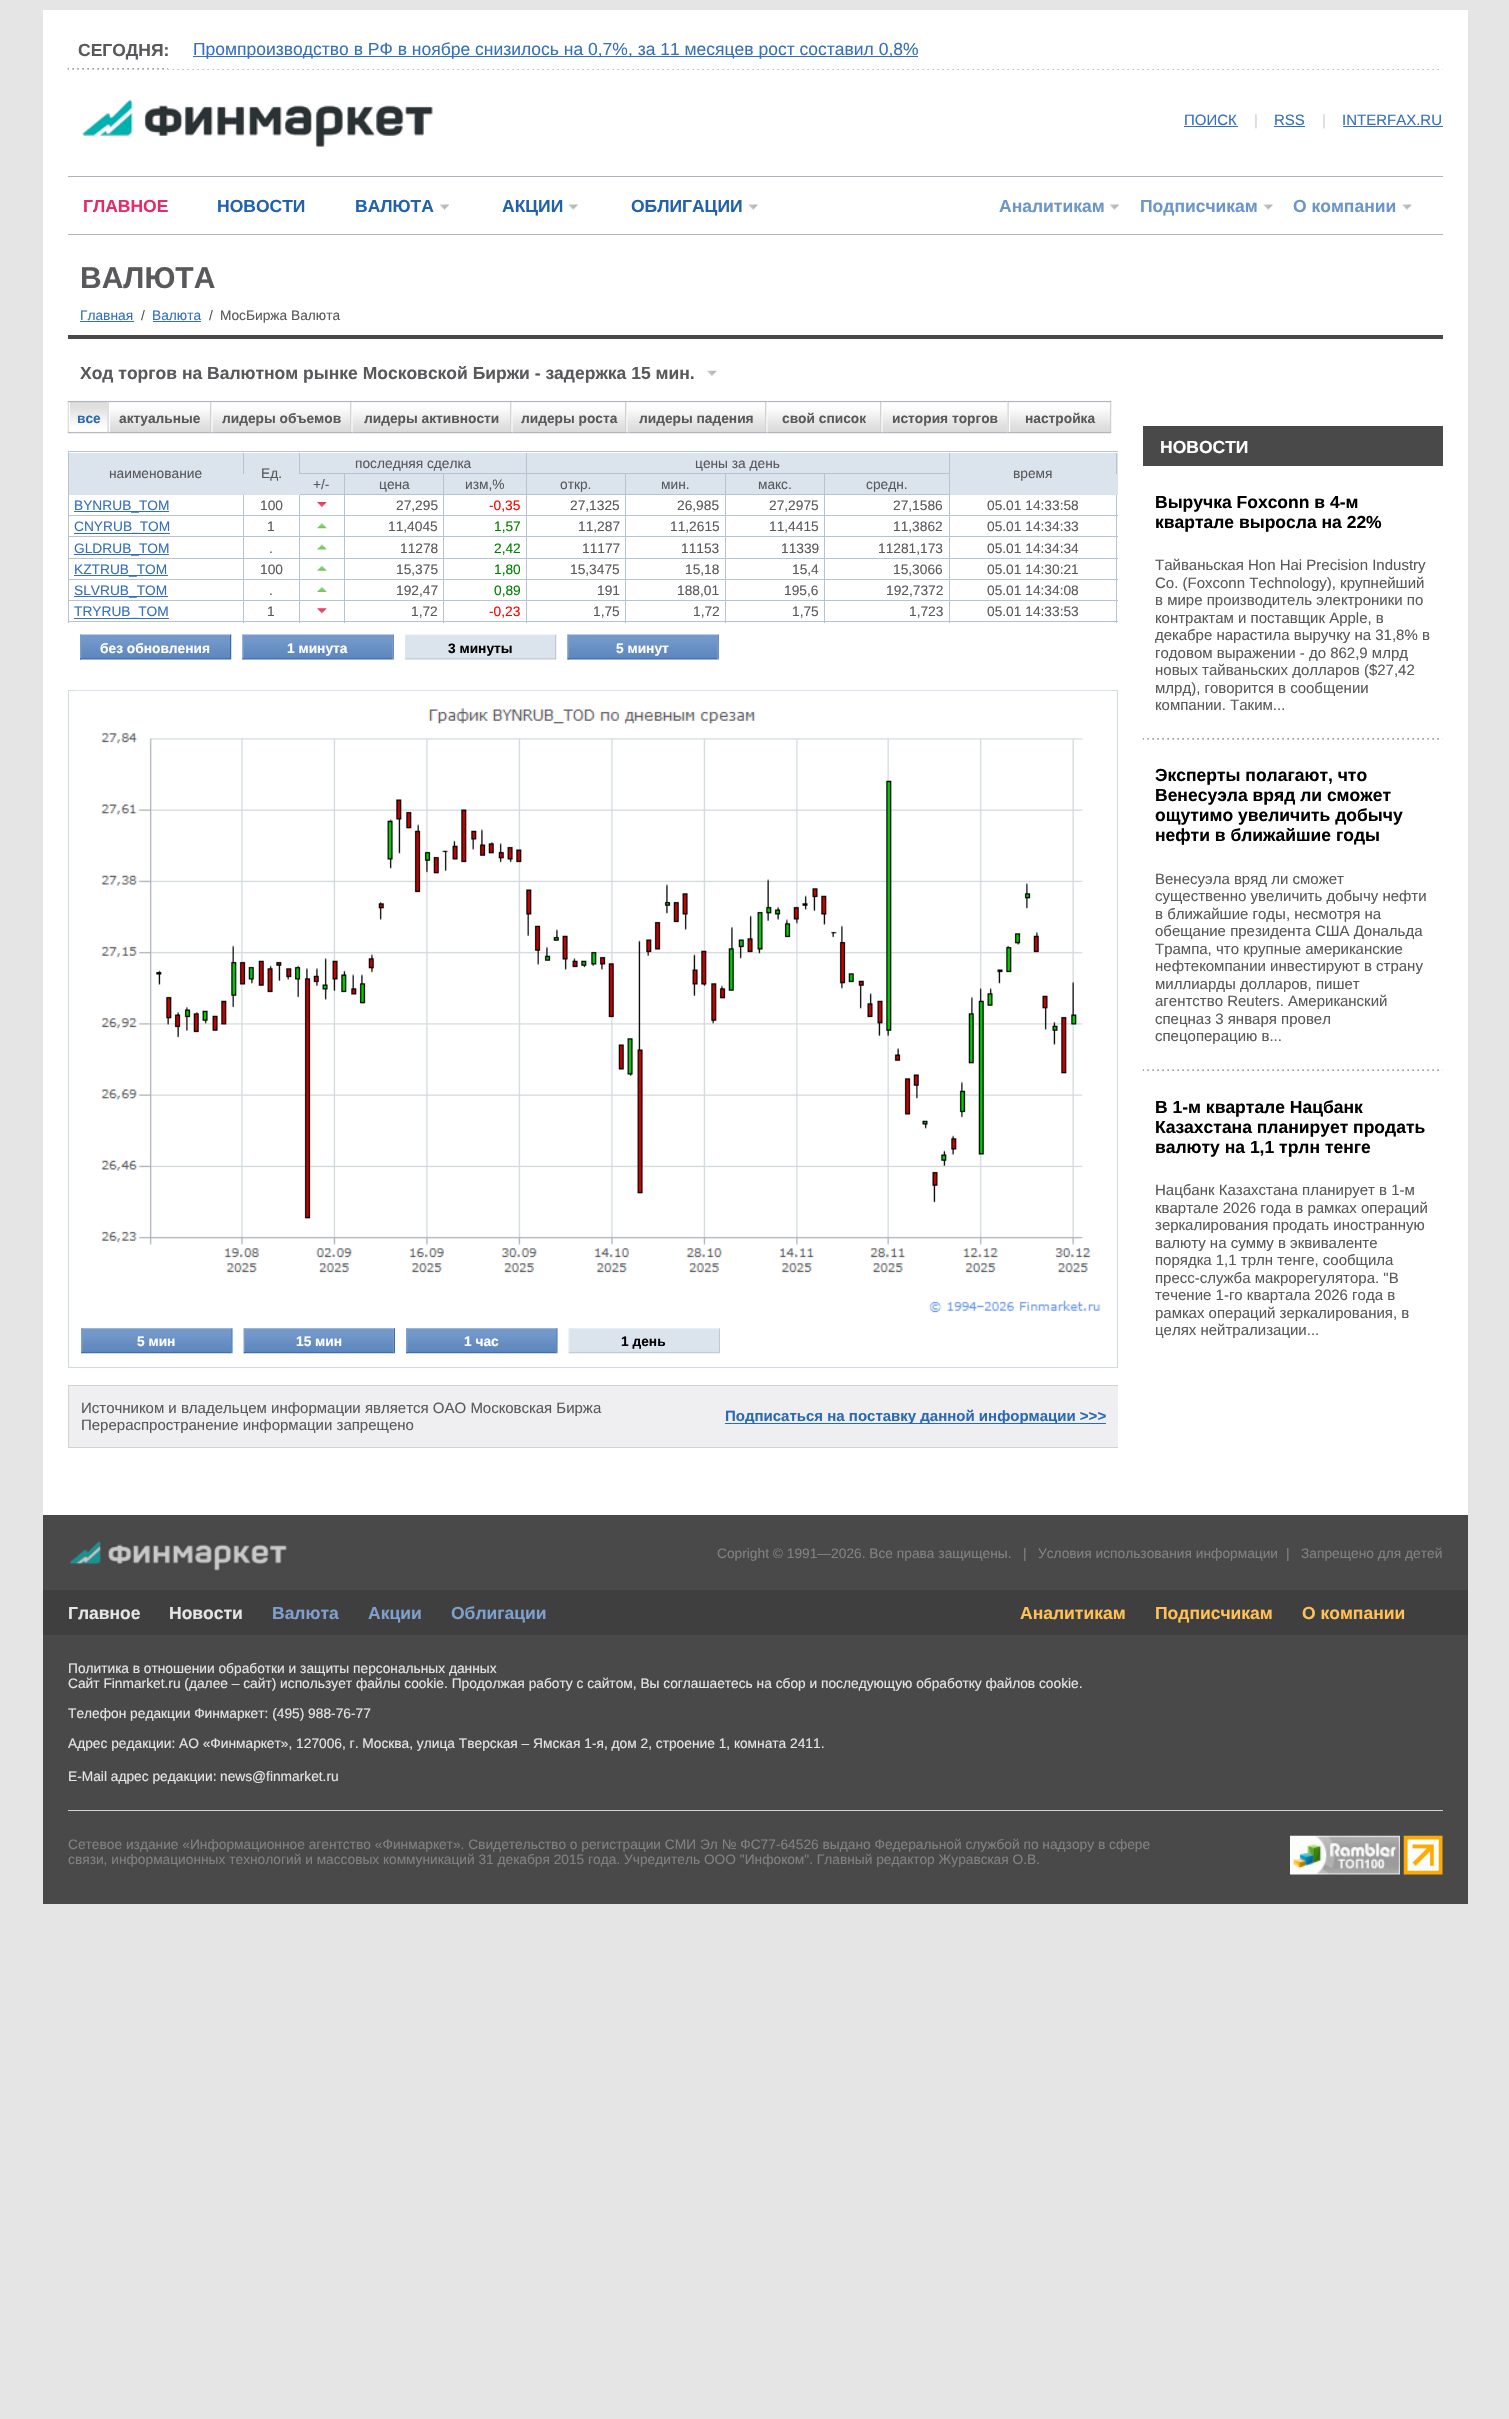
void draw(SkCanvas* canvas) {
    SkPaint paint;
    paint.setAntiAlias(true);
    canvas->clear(0xFFE5E5E5);
    paint.setColor(0xFFFFFFFF);
    canvas->drawRect(SkRect::MakeXYWH(43, 10, 1425, 1505), paint);
    SkFont font1(fontMgr->matchFamilyStyle("Liberation Sans", SkFontStyle::Bold()), 17.5f);
    font1.setSubpixel(true);
    paint.setColor(0xFF59595C);
    canvas->drawString("СЕГОДНЯ:", 78, 56, font1, paint);
    canvas->drawImageRect(SkImages::DeferredFromEncodedData(SkData::MakeFromFileName("img1.png")), SkRect::MakeXYWH(67, 68, 1376, 2), SkSamplingOptions());
    paint.setColor(0xFFFFFFFF);
    canvas->drawRect(SkRect::MakeXYWH(168, 68, 1275, 1), paint);
    paint.setColor(0xFF3570BC);
    canvas->drawRect(SkRect::MakeXYWH(193, 56, 725, 1), paint);
    SkFont font2(fontMgr->matchFamilyStyle("Liberation Sans", SkFontStyle::Normal()), 17.5f);
    font2.setSubpixel(true);
    canvas->drawString("Промпроизводство в РФ в ноябре снизилось на 0,7%, за 11 месяцев рост составил 0,8%", 193, 55, font2, paint);
    canvas->drawImageRect(SkImages::DeferredFromEncodedData(SkData::MakeFromFileName("img2.png")), SkRect::MakeXYWH(82, 99, 351, 48), SkSamplingOptions());
    SkFont font3(fontMgr->matchFamilyStyle("Liberation Sans", SkFontStyle::Normal()), 15);
    font3.setSubpixel(true);
    canvas->drawString("ПОИСК", 1184, 125, font3, paint);
    canvas->drawRect(SkRect::MakeXYWH(1184, 126, 54, 1), paint);
    paint.setColor(0xFFD2D2D2);
    canvas->drawString("|", 1254, 125, font3, paint);
    paint.setColor(0xFF3570BC);
    canvas->drawString("RSS", 1274, 125, font3, paint);
    canvas->drawRect(SkRect::MakeXYWH(1274, 126, 31, 1), paint);
    paint.setColor(0xFFD2D2D2);
    canvas->drawString("|", 1322, 125, font3, paint);
    paint.setColor(0xFF3570BC);
    canvas->drawString("INTERFAX.RU", 1342, 125, font3, paint);
    canvas->drawRect(SkRect::MakeXYWH(1343, 126, 100, 1), paint);
    paint.setColor(0xFFADB2BB);
    canvas->drawRect(SkRect::MakeXYWH(68, 176, 1375, 1), paint);
    paint.setColor(0xFFE62B66);
    canvas->drawString("ГЛАВНОЕ", 83, 212, font1, paint);
    paint.setColor(0xFF2262AC);
    canvas->drawString("НОВОСТИ", 217, 212, font1, paint);
    canvas->drawString("ВАЛЮТА", 355, 212, font1, paint);
    canvas->drawImageRect(SkImages::DeferredFromEncodedData(SkData::MakeFromFileName("img3.png")), SkRect::MakeXYWH(440, 204, 9, 6), SkSamplingOptions());
    canvas->drawString("АКЦИИ", 502, 212, font1, paint);
    canvas->drawImageRect(SkImages::DeferredFromEncodedData(SkData::MakeFromFileName("img4.png")), SkRect::MakeXYWH(568, 204, 10, 6), SkSamplingOptions());
    canvas->drawString("ОБЛИГАЦИИ", 631, 212, font1, paint);
    canvas->drawImageRect(SkImages::DeferredFromEncodedData(SkData::MakeFromFileName("img4.png")), SkRect::MakeXYWH(748, 204, 10, 6), SkSamplingOptions());
    paint.setColor(0xFF6A96C9);
    canvas->drawString("Аналитикам", 999, 212, font1, paint);
    canvas->drawImageRect(SkImages::DeferredFromEncodedData(SkData::MakeFromFileName("img5.png")), SkRect::MakeXYWH(1110, 204, 9, 6), SkSamplingOptions());
    canvas->drawString("Подписчикам", 1140, 212, font1, paint);
    canvas->drawImageRect(SkImages::DeferredFromEncodedData(SkData::MakeFromFileName("img4.png")), SkRect::MakeXYWH(1263, 204, 10, 6), SkSamplingOptions());
    canvas->drawString("О компании", 1293, 212, font1, paint);
    canvas->drawImageRect(SkImages::DeferredFromEncodedData(SkData::MakeFromFileName("img6.png")), SkRect::MakeXYWH(1402, 204, 10, 6), SkSamplingOptions());
    paint.setColor(0xFFADB2BB);
    canvas->drawRect(SkRect::MakeXYWH(68, 234, 1375, 1), paint);
    SkFont font4(fontMgr->matchFamilyStyle("Liberation Sans", SkFontStyle::Bold()), 30);
    font4.setSubpixel(true);
    paint.setColor(0xFF59595C);
    canvas->drawString("ВАЛЮТА", 80, 288, font4, paint);
    SkFont font5(fontMgr->matchFamilyStyle("Liberation Sans", SkFontStyle::Normal()), 13.75f);
    font5.setSubpixel(true);
    paint.setColor(0xFF3570BC);
    canvas->drawString("Главная", 80, 320, font5, paint);
    canvas->drawRect(SkRect::MakeXYWH(80, 321, 54, 1), paint);
    paint.setColor(0xFF59595C);
    canvas->drawString("/", 141, 320, font5, paint);
    paint.setColor(0xFF3570BC);
    canvas->drawString("Валюта", 152, 320, font5, paint);
    canvas->drawRect(SkRect::MakeXYWH(153, 321, 48, 1), paint);
    paint.setColor(0xFF59595C);
    canvas->drawString("/", 209, 320, font5, paint);
    canvas->drawString("МосБиржа Валюта", 220, 320, font5, paint);
    paint.setColor(0xFF494949);
    canvas->drawRect(SkRect::MakeXYWH(68, 335, 1375, 4), paint);
    paint.setColor(0xFF59595C);
    canvas->drawString("Ход торгов на Валютном рынке Московской Биржи - задержка 15 мин.", 80, 379, font1, paint);
    canvas->drawImageRect(SkImages::DeferredFromEncodedData(SkData::MakeFromFileName("img7.png")), SkRect::MakeXYWH(707, 370, 10, 6), SkSamplingOptions());
    canvas->drawImageRect(SkImages::DeferredFromEncodedData(SkData::MakeFromFileName("img8.png")), SkRect::MakeXYWH(67, 400, 3, 34), SkSamplingOptions());
    canvas->drawImageRect(SkImages::DeferredFromEncodedData(SkData::MakeFromFileName("img9.png")), SkRect::MakeXYWH(70, 400, 38, 34), SkSamplingOptions());
    SkFont font6(fontMgr->matchFamilyStyle("Liberation Sans", SkFontStyle::Bold()), 13.75f);
    font6.setSubpixel(true);
    paint.setColor(0xFF2B69B2);
    canvas->drawString("все", 77, 423, font6, paint);
    canvas->drawImageRect(SkImages::DeferredFromEncodedData(SkData::MakeFromFileName("img10.png")), SkRect::MakeXYWH(107, 400, 3, 34), SkSamplingOptions());
    canvas->drawImageRect(SkImages::DeferredFromEncodedData(SkData::MakeFromFileName("img11.png")), SkRect::MakeXYWH(110, 400, 100, 34), SkSamplingOptions());
    paint.setColor(0xFF59595C);
    canvas->drawString("актуальные", 119, 423, font6, paint);
    canvas->drawImageRect(SkImages::DeferredFromEncodedData(SkData::MakeFromFileName("img12.png")), SkRect::MakeXYWH(210, 400, 3, 34), SkSamplingOptions());
    canvas->drawImageRect(SkImages::DeferredFromEncodedData(SkData::MakeFromFileName("img13.png")), SkRect::MakeXYWH(212, 400, 138, 34), SkSamplingOptions());
    canvas->drawString("лидеры объемов", 222, 423, font6, paint);
    canvas->drawImageRect(SkImages::DeferredFromEncodedData(SkData::MakeFromFileName("img12.png")), SkRect::MakeXYWH(350, 400, 3, 34), SkSamplingOptions());
    canvas->drawImageRect(SkImages::DeferredFromEncodedData(SkData::MakeFromFileName("img14.png")), SkRect::MakeXYWH(352, 400, 158, 34), SkSamplingOptions());
    canvas->drawString("лидеры активности", 364, 423, font6, paint);
    canvas->drawImageRect(SkImages::DeferredFromEncodedData(SkData::MakeFromFileName("img12.png")), SkRect::MakeXYWH(510, 400, 3, 34), SkSamplingOptions());
    canvas->drawImageRect(SkImages::DeferredFromEncodedData(SkData::MakeFromFileName("img15.png")), SkRect::MakeXYWH(512, 400, 113, 34), SkSamplingOptions());
    canvas->drawString("лидеры роста", 521, 423, font6, paint);
    canvas->drawImageRect(SkImages::DeferredFromEncodedData(SkData::MakeFromFileName("img12.png")), SkRect::MakeXYWH(625, 400, 3, 34), SkSamplingOptions());
    canvas->drawImageRect(SkImages::DeferredFromEncodedData(SkData::MakeFromFileName("img13.png")), SkRect::MakeXYWH(627, 400, 138, 34), SkSamplingOptions());
    canvas->drawString("лидеры падения", 639, 423, font6, paint);
    canvas->drawImageRect(SkImages::DeferredFromEncodedData(SkData::MakeFromFileName("img12.png")), SkRect::MakeXYWH(765, 400, 3, 34), SkSamplingOptions());
    canvas->drawImageRect(SkImages::DeferredFromEncodedData(SkData::MakeFromFileName("img15.png")), SkRect::MakeXYWH(767, 400, 113, 34), SkSamplingOptions());
    canvas->drawString("свой список", 782, 423, font6, paint);
    canvas->drawImageRect(SkImages::DeferredFromEncodedData(SkData::MakeFromFileName("img12.png")), SkRect::MakeXYWH(880, 400, 3, 34), SkSamplingOptions());
    canvas->drawImageRect(SkImages::DeferredFromEncodedData(SkData::MakeFromFileName("img16.png")), SkRect::MakeXYWH(882, 400, 126, 34), SkSamplingOptions());
    canvas->drawString("история торгов", 892, 423, font6, paint);
    canvas->drawImageRect(SkImages::DeferredFromEncodedData(SkData::MakeFromFileName("img17.png")), SkRect::MakeXYWH(1007, 400, 3, 34), SkSamplingOptions());
    canvas->drawImageRect(SkImages::DeferredFromEncodedData(SkData::MakeFromFileName("img11.png")), SkRect::MakeXYWH(1010, 400, 100, 34), SkSamplingOptions());
    canvas->drawString("настройка", 1025, 423, font6, paint);
    canvas->drawImageRect(SkImages::DeferredFromEncodedData(SkData::MakeFromFileName("img18.png")), SkRect::MakeXYWH(1110, 400, 2, 34), SkSamplingOptions());
    paint.setColor(0xFFB6C3D3);
    canvas->drawRect(SkRect::MakeXYWH(68, 451, 1050, 1), paint);
    canvas->drawRect(SkRect::MakeXYWH(68, 451, 1, 172), paint);
    paint.setColor(0xFFDBE4ED);
    canvas->drawRect(SkRect::MakeXYWH(69, 453, 1049, 42), paint);
    paint.setColor(0xFFB6C3D3);
    canvas->drawRect(SkRect::MakeXYWH(526, 453, 1, 170), paint);
    canvas->drawRect(SkRect::MakeXYWH(300, 473, 228, 1), paint);
    paint.setColor(0xFF59595C);
    canvas->drawString("последняя сделка", 355, 468, font5, paint);
    paint.setColor(0xFFB6C3D3);
    canvas->drawRect(SkRect::MakeXYWH(949, 453, 1, 170), paint);
    canvas->drawRect(SkRect::MakeXYWH(528, 473, 422, 1), paint);
    paint.setColor(0xFF59595C);
    canvas->drawString("цены за день", 695, 468, font5, paint);
    paint.setColor(0xFFB6C3D3);
    canvas->drawRect(SkRect::MakeXYWH(243, 453, 1, 21), paint);
    paint.setColor(0xFF59595C);
    canvas->drawString("наименование", 109, 478, font5, paint);
    paint.setColor(0xFFB6C3D3);
    canvas->drawRect(SkRect::MakeXYWH(299, 453, 1, 21), paint);
    paint.setColor(0xFF59595C);
    canvas->drawString("Ед.", 261, 478, font5, paint);
    paint.setColor(0xFFB6C3D3);
    canvas->drawRect(SkRect::MakeXYWH(1116, 453, 1, 21), paint);
    paint.setColor(0xFF59595C);
    canvas->drawString("время", 1013, 478, font5, paint);
    paint.setColor(0xFFB6C3D3);
    canvas->drawRect(SkRect::MakeXYWH(344, 474, 1, 149), paint);
    canvas->drawRect(SkRect::MakeXYWH(300, 494, 45, 1), paint);
    paint.setColor(0xFF59595C);
    canvas->drawString("+/-", 313, 489, font5, paint);
    paint.setColor(0xFFB6C3D3);
    canvas->drawRect(SkRect::MakeXYWH(443, 474, 1, 149), paint);
    canvas->drawRect(SkRect::MakeXYWH(345, 494, 183, 1), paint);
    paint.setColor(0xFF59595C);
    canvas->drawString("цена", 379, 489, font5, paint);
    canvas->drawString("изм,%", 465, 489, font5, paint);
    paint.setColor(0xFFB6C3D3);
    canvas->drawRect(SkRect::MakeXYWH(625, 474, 1, 149), paint);
    canvas->drawRect(SkRect::MakeXYWH(528, 494, 98, 1), paint);
    paint.setColor(0xFF59595C);
    canvas->drawString("откр.", 560, 489, font5, paint);
    paint.setColor(0xFFB6C3D3);
    canvas->drawRect(SkRect::MakeXYWH(725, 474, 1, 149), paint);
    canvas->drawRect(SkRect::MakeXYWH(626, 494, 100, 1), paint);
    paint.setColor(0xFF59595C);
    canvas->drawString("мин.", 661, 489, font5, paint);
    paint.setColor(0xFFB6C3D3);
    canvas->drawRect(SkRect::MakeXYWH(824, 474, 1, 149), paint);
    canvas->drawRect(SkRect::MakeXYWH(726, 494, 224, 1), paint);
    paint.setColor(0xFF59595C);
    canvas->drawString("макс.", 758, 489, font5, paint);
    canvas->drawString("средн.", 866, 489, font5, paint);
    paint.setColor(0xFFB6C3D3);
    canvas->drawRect(SkRect::MakeXYWH(243, 495, 1, 128), paint);
    canvas->drawRect(SkRect::MakeXYWH(69, 515, 175, 1), paint);
    paint.setColor(0xFF3570BC);
    canvas->drawRect(SkRect::MakeXYWH(74, 511, 95, 1), paint);
    canvas->drawString("BYNRUB_TOM", 74, 510, font5, paint);
    paint.setColor(0xFFB6C3D3);
    canvas->drawRect(SkRect::MakeXYWH(299, 495, 1, 128), paint);
    canvas->drawRect(SkRect::MakeXYWH(244, 515, 706, 1), paint);
    paint.setColor(0xFF59595C);
    canvas->drawString("100", 260, 510, font5, paint);
    canvas->drawImageRect(SkImages::DeferredFromEncodedData(SkData::MakeFromFileName("img19.png")), SkRect::MakeXYWH(317, 502, 10, 5), SkSamplingOptions());
    canvas->drawString("27,295", 396, 510, font5, paint);
    paint.setColor(0xFFFF0000);
    canvas->drawString("-0,35", 489, 510, font5, paint);
    paint.setColor(0xFF59595C);
    canvas->drawString("27,1325", 570, 510, font5, paint);
    canvas->drawString("26,985", 677, 510, font5, paint);
    canvas->drawString("27,2975", 769, 510, font5, paint);
    canvas->drawString("27,1586", 893, 510, font5, paint);
    paint.setColor(0xFFB6C3D3);
    canvas->drawRect(SkRect::MakeXYWH(1116, 495, 1, 128), paint);
    canvas->drawRect(SkRect::MakeXYWH(950, 515, 168, 1), paint);
    paint.setColor(0xFF59595C);
    canvas->drawString("05.01 14:33:58", 987, 510, font5, paint);
    paint.setColor(0xFFB6C3D3);
    canvas->drawRect(SkRect::MakeXYWH(69, 536, 1049, 1), paint);
    paint.setColor(0xFF3570BC);
    canvas->drawRect(SkRect::MakeXYWH(74, 533, 96, 1), paint);
    canvas->drawString("CNYRUB_TOM", 74, 531, font5, paint);
    paint.setColor(0xFF59595C);
    canvas->drawString("1", 267, 531, font5, paint);
    canvas->drawImageRect(SkImages::DeferredFromEncodedData(SkData::MakeFromFileName("img20.png")), SkRect::MakeXYWH(317, 523, 10, 6), SkSamplingOptions());
    canvas->drawString("11,4045", 388, 531, font5, paint);
    paint.setColor(0xFF008000);
    canvas->drawString("1,57", 494, 531, font5, paint);
    paint.setColor(0xFF59595C);
    canvas->drawString("11,287", 578, 531, font5, paint);
    canvas->drawString("11,2615", 670, 531, font5, paint);
    canvas->drawString("11,4415", 769, 531, font5, paint);
    canvas->drawString("11,3862", 893, 531, font5, paint);
    canvas->drawString("05.01 14:34:33", 987, 531, font5, paint);
    paint.setColor(0xFFB6C3D3);
    canvas->drawRect(SkRect::MakeXYWH(69, 558, 1049, 1), paint);
    paint.setColor(0xFF3570BC);
    canvas->drawRect(SkRect::MakeXYWH(74, 554, 95, 1), paint);
    canvas->drawString("GLDRUB_TOM", 74, 553, font5, paint);
    canvas->drawImageRect(SkImages::DeferredFromEncodedData(SkData::MakeFromFileName("img21.png")), SkRect::MakeXYWH(317, 544, 10, 6), SkSamplingOptions());
    paint.setColor(0xFF59595C);
    canvas->drawString("11278", 400, 553, font5, paint);
    paint.setColor(0xFF008000);
    canvas->drawString("2,42", 494, 553, font5, paint);
    paint.setColor(0xFF59595C);
    canvas->drawString("11177", 582, 553, font5, paint);
    canvas->drawString("11153", 681, 553, font5, paint);
    canvas->drawString("11339", 781, 553, font5, paint);
    canvas->drawString("11281,173", 878, 553, font5, paint);
    canvas->drawString("05.01 14:34:34", 987, 553, font5, paint);
    canvas->drawString(".", 269, 553, font5, paint);
    paint.setColor(0xFFB6C3D3);
    canvas->drawRect(SkRect::MakeXYWH(69, 579, 1049, 1), paint);
    paint.setColor(0xFF3570BC);
    canvas->drawRect(SkRect::MakeXYWH(74, 575, 94, 1), paint);
    canvas->drawString("KZTRUB_TOM", 74, 574, font5, paint);
    paint.setColor(0xFF59595C);
    canvas->drawString("100", 260, 574, font5, paint);
    canvas->drawImageRect(SkImages::DeferredFromEncodedData(SkData::MakeFromFileName("img22.png")), SkRect::MakeXYWH(317, 565, 10, 6), SkSamplingOptions());
    canvas->drawString("15,375", 396, 574, font5, paint);
    paint.setColor(0xFF008000);
    canvas->drawString("1,80", 494, 574, font5, paint);
    paint.setColor(0xFF59595C);
    canvas->drawString("15,3475", 570, 574, font5, paint);
    canvas->drawString("15,18", 685, 574, font5, paint);
    canvas->drawString("15,4", 792, 574, font5, paint);
    canvas->drawString("15,3066", 893, 574, font5, paint);
    canvas->drawString("05.01 14:30:21", 987, 574, font5, paint);
    paint.setColor(0xFFB6C3D3);
    canvas->drawRect(SkRect::MakeXYWH(69, 600, 1049, 1), paint);
    paint.setColor(0xFF3570BC);
    canvas->drawRect(SkRect::MakeXYWH(74, 596, 94, 1), paint);
    canvas->drawString("SLVRUB_TOM", 74, 595, font5, paint);
    canvas->drawImageRect(SkImages::DeferredFromEncodedData(SkData::MakeFromFileName("img23.png")), SkRect::MakeXYWH(317, 587, 10, 5), SkSamplingOptions());
    paint.setColor(0xFF59595C);
    canvas->drawString("192,47", 396, 595, font5, paint);
    paint.setColor(0xFF008000);
    canvas->drawString("0,89", 494, 595, font5, paint);
    paint.setColor(0xFF59595C);
    canvas->drawString("191", 597, 595, font5, paint);
    canvas->drawString("188,01", 677, 595, font5, paint);
    canvas->drawString("195,6", 784, 595, font5, paint);
    canvas->drawString("192,7372", 886, 595, font5, paint);
    canvas->drawString("05.01 14:34:08", 987, 595, font5, paint);
    canvas->drawString(".", 269, 595, font5, paint);
    paint.setColor(0xFFB6C3D3);
    canvas->drawRect(SkRect::MakeXYWH(69, 621, 1049, 1), paint);
    paint.setColor(0xFF3570BC);
    canvas->drawRect(SkRect::MakeXYWH(74, 618, 95, 1), paint);
    canvas->drawString("TRYRUB_TOM", 74, 616, font5, paint);
    paint.setColor(0xFF59595C);
    canvas->drawString("1", 267, 616, font5, paint);
    canvas->drawImageRect(SkImages::DeferredFromEncodedData(SkData::MakeFromFileName("img24.png")), SkRect::MakeXYWH(317, 608, 10, 6), SkSamplingOptions());
    canvas->drawString("1,72", 411, 616, font5, paint);
    paint.setColor(0xFFFF0000);
    canvas->drawString("-0,23", 489, 616, font5, paint);
    paint.setColor(0xFF59595C);
    canvas->drawString("1,75", 593, 616, font5, paint);
    canvas->drawString("1,72", 693, 616, font5, paint);
    canvas->drawString("1,75", 792, 616, font5, paint);
    canvas->drawString("1,723", 909, 616, font5, paint);
    canvas->drawString("05.01 14:33:53", 987, 616, font5, paint);
    canvas->drawImageRect(SkImages::DeferredFromEncodedData(SkData::MakeFromFileName("img25.png")), SkRect::MakeXYWH(80, 634, 150, 26), SkSamplingOptions());
    canvas->drawImageRect(SkImages::DeferredFromEncodedData(SkData::MakeFromFileName("img26.png")), SkRect::MakeXYWH(80, 634, 2, 26), SkSamplingOptions());
    paint.setColor(0xFFFFFFFF);
    canvas->drawString("без обновления", 100, 653, font6, paint);
    canvas->drawImageRect(SkImages::DeferredFromEncodedData(SkData::MakeFromFileName("img27.png")), SkRect::MakeXYWH(230, 634, 2, 26), SkSamplingOptions());
    canvas->drawImageRect(SkImages::DeferredFromEncodedData(SkData::MakeFromFileName("img28.png")), SkRect::MakeXYWH(242, 634, 151, 26), SkSamplingOptions());
    canvas->drawImageRect(SkImages::DeferredFromEncodedData(SkData::MakeFromFileName("img29.png")), SkRect::MakeXYWH(242, 634, 2, 26), SkSamplingOptions());
    canvas->drawString("1 минута", 287, 653, font6, paint);
    canvas->drawImageRect(SkImages::DeferredFromEncodedData(SkData::MakeFromFileName("img30.png")), SkRect::MakeXYWH(392, 634, 2, 26), SkSamplingOptions());
    canvas->drawImageRect(SkImages::DeferredFromEncodedData(SkData::MakeFromFileName("img31.png")), SkRect::MakeXYWH(405, 634, 150, 26), SkSamplingOptions());
    canvas->drawImageRect(SkImages::DeferredFromEncodedData(SkData::MakeFromFileName("img32.png")), SkRect::MakeXYWH(405, 634, 1, 26), SkSamplingOptions());
    paint.setColor(0xFF000000);
    canvas->drawString("3 минуты", 448, 653, font6, paint);
    canvas->drawImageRect(SkImages::DeferredFromEncodedData(SkData::MakeFromFileName("img33.png")), SkRect::MakeXYWH(555, 634, 2, 26), SkSamplingOptions());
    canvas->drawImageRect(SkImages::DeferredFromEncodedData(SkData::MakeFromFileName("img28.png")), SkRect::MakeXYWH(567, 634, 151, 26), SkSamplingOptions());
    canvas->drawImageRect(SkImages::DeferredFromEncodedData(SkData::MakeFromFileName("img29.png")), SkRect::MakeXYWH(567, 634, 2, 26), SkSamplingOptions());
    paint.setColor(0xFFFFFFFF);
    canvas->drawString("5 минут", 616, 653, font6, paint);
    canvas->drawImageRect(SkImages::DeferredFromEncodedData(SkData::MakeFromFileName("img30.png")), SkRect::MakeXYWH(717, 634, 2, 26), SkSamplingOptions());
    paint.setStyle(SkPaint::kStroke_Style);
    paint.setStrokeWidth(1);
    paint.setColor(0xFFD1DAE4);
    canvas->drawRect(SkRect::MakeXYWH(68.5f, 690.5f, 1049, 677), paint);
    canvas->drawImageRect(SkImages::DeferredFromEncodedData(SkData::MakeFromFileName("img34.png")), SkRect::MakeXYWH(74, 690, 1037, 623), SkSamplingOptions());
    canvas->drawImageRect(SkImages::DeferredFromEncodedData(SkData::MakeFromFileName("img35.png")), SkRect::MakeXYWH(81, 1328, 151, 26), SkSamplingOptions());
    canvas->drawImageRect(SkImages::DeferredFromEncodedData(SkData::MakeFromFileName("img36.png")), SkRect::MakeXYWH(81, 1328, 2, 26), SkSamplingOptions());
    paint.setStyle(SkPaint::kFill_Style);
    paint.setColor(0xFFFFFFFF);
    canvas->drawString("5 мин", 137, 1346, font6, paint);
    canvas->drawImageRect(SkImages::DeferredFromEncodedData(SkData::MakeFromFileName("img37.png")), SkRect::MakeXYWH(231, 1328, 2, 26), SkSamplingOptions());
    canvas->drawImageRect(SkImages::DeferredFromEncodedData(SkData::MakeFromFileName("img38.png")), SkRect::MakeXYWH(243, 1328, 151, 26), SkSamplingOptions());
    canvas->drawImageRect(SkImages::DeferredFromEncodedData(SkData::MakeFromFileName("img39.png")), SkRect::MakeXYWH(243, 1328, 2, 26), SkSamplingOptions());
    canvas->drawString("15 мин", 296, 1346, font6, paint);
    canvas->drawImageRect(SkImages::DeferredFromEncodedData(SkData::MakeFromFileName("img40.png")), SkRect::MakeXYWH(393, 1328, 2, 26), SkSamplingOptions());
    canvas->drawImageRect(SkImages::DeferredFromEncodedData(SkData::MakeFromFileName("img35.png")), SkRect::MakeXYWH(406, 1328, 151, 26), SkSamplingOptions());
    canvas->drawImageRect(SkImages::DeferredFromEncodedData(SkData::MakeFromFileName("img36.png")), SkRect::MakeXYWH(406, 1328, 2, 26), SkSamplingOptions());
    canvas->drawString("1 час", 464, 1346, font6, paint);
    canvas->drawImageRect(SkImages::DeferredFromEncodedData(SkData::MakeFromFileName("img37.png")), SkRect::MakeXYWH(556, 1328, 2, 26), SkSamplingOptions());
    canvas->drawImageRect(SkImages::DeferredFromEncodedData(SkData::MakeFromFileName("img41.png")), SkRect::MakeXYWH(568, 1328, 151, 26), SkSamplingOptions());
    canvas->drawImageRect(SkImages::DeferredFromEncodedData(SkData::MakeFromFileName("img42.png")), SkRect::MakeXYWH(568, 1328, 2, 26), SkSamplingOptions());
    paint.setColor(0xFF000000);
    canvas->drawString("1 день", 621, 1346, font6, paint);
    canvas->drawImageRect(SkImages::DeferredFromEncodedData(SkData::MakeFromFileName("img43.png")), SkRect::MakeXYWH(718, 1328, 2, 26), SkSamplingOptions());
    paint.setColor(0xFFEFEFF1);
    canvas->drawRect(SkRect::MakeXYWH(69, 1386, 1049, 61), paint);
    canvas->save();
    canvas->clipRect(SkRect::MakeXYWH(68, 401, 1050, 1089));
    paint.setStyle(SkPaint::kStroke_Style);
    paint.setColor(0xFFD2D2D2);
    canvas->drawRect(SkRect::MakeXYWH(68.5f, 1385.5f, 1051, 62), paint);
    canvas->restore();
    paint.setStyle(SkPaint::kFill_Style);
    paint.setColor(0xFF59595C);
    canvas->drawString("Источником и владельцем информации является ОАО Московская Биржа", 81, 1413, font3, paint);
    canvas->drawString("Перераспространение информации запрещено", 81, 1430, font3, paint);
    paint.setColor(0xFF2B69B2);
    canvas->drawRect(SkRect::MakeXYWH(725, 1423, 381, 1), paint);
    SkFont font7(fontMgr->matchFamilyStyle("Liberation Sans", SkFontStyle::Bold()), 15);
    font7.setSubpixel(true);
    canvas->drawString("Подписаться на поставку данной информации >>>", 725, 1421, font7, paint);
    paint.setColor(0xFF494949);
    canvas->drawRect(SkRect::MakeXYWH(1143, 426, 300, 40), paint);
    paint.setColor(0xFFFFFFFF);
    canvas->drawString("НОВОСТИ", 1160, 453, font1, paint);
    paint.setColor(0xFF000000);
    canvas->drawString("Выручка Foxconn в 4-м", 1155, 508, font1, paint);
    canvas->drawString("квартале выросла на 22%", 1155, 528, font1, paint);
    paint.setColor(0xFF59595C);
    canvas->drawString("Тайваньская Hon Hai Precision Industry", 1155, 570, font3, paint);
    canvas->drawString("Co. (Foxconn Technology), крупнейший", 1155, 588, font3, paint);
    canvas->drawString("в мире производитель электроники по", 1155, 605, font3, paint);
    canvas->drawString("контрактам и поставщик Apple, в", 1155, 623, font3, paint);
    canvas->drawString("декабре нарастила выручку на 31,8% в", 1155, 640, font3, paint);
    canvas->drawString("годовом выражении - до 862,9 млрд", 1155, 658, font3, paint);
    canvas->drawString("новых тайваньских долларов ($27,42", 1155, 675, font3, paint);
    canvas->drawString("млрд), говорится в сообщении", 1155, 693, font3, paint);
    canvas->drawString("компании. Таким...", 1155, 710, font3, paint);
    canvas->drawImageRect(SkImages::DeferredFromEncodedData(SkData::MakeFromFileName("img44.png")), SkRect::MakeXYWH(1142, 738, 301, 2), SkSamplingOptions());
    paint.setColor(0xFF000000);
    canvas->drawString("Эксперты полагают, что", 1155, 781, font1, paint);
    canvas->drawString("Венесуэла вряд ли сможет", 1155, 801, font1, paint);
    canvas->drawString("ощутимо увеличить добычу", 1155, 821, font1, paint);
    canvas->drawString("нефти в ближайшие годы", 1155, 841, font1, paint);
    paint.setColor(0xFF59595C);
    canvas->drawString("Венесуэла вряд ли сможет", 1155, 884, font3, paint);
    canvas->drawString("существенно увеличить добычу нефти", 1155, 901, font3, paint);
    canvas->drawString("в ближайшие годы, несмотря на", 1155, 919, font3, paint);
    canvas->drawString("обещание президента США Дональда", 1155, 936, font3, paint);
    canvas->drawString("Трампа, что крупные американские", 1155, 954, font3, paint);
    canvas->drawString("нефтекомпании инвестируют в страну", 1155, 971, font3, paint);
    canvas->drawString("миллиарды долларов, пишет", 1155, 989, font3, paint);
    canvas->drawString("агентство Reuters. Американский", 1155, 1006, font3, paint);
    canvas->drawString("спецназ 3 января провел", 1155, 1024, font3, paint);
    canvas->drawString("спецоперацию в...", 1155, 1041, font3, paint);
    canvas->drawImageRect(SkImages::DeferredFromEncodedData(SkData::MakeFromFileName("img45.png")), SkRect::MakeXYWH(1142, 1069, 301, 2), SkSamplingOptions());
    paint.setColor(0xFF000000);
    canvas->drawString("В 1-м квартале Нацбанк", 1155, 1113, font1, paint);
    canvas->drawString("Казахстана планирует продать", 1155, 1133, font1, paint);
    canvas->drawString("валюту на 1,1 трлн тенге", 1155, 1153, font1, paint);
    paint.setColor(0xFF59595C);
    canvas->drawString("Нацбанк Казахстана планирует в 1-м", 1155, 1195, font3, paint);
    canvas->drawString("квартале 2026 года в рамках операций", 1155, 1213, font3, paint);
    canvas->drawString("зеркалирования продать иностранную", 1155, 1230, font3, paint);
    canvas->drawString("валюту на сумму в эквиваленте", 1155, 1248, font3, paint);
    canvas->drawString("порядка 1,1 трлн тенге, сообщила", 1155, 1265, font3, paint);
    canvas->drawString("пресс-служба макрорегулятора. \"В", 1155, 1283, font3, paint);
    canvas->drawString("течение 1-го квартала 2026 года в", 1155, 1300, font3, paint);
    canvas->drawString("рамках операций зеркалирования, в", 1155, 1318, font3, paint);
    canvas->drawString("целях нейтрализации...", 1155, 1335, font3, paint);
    paint.setColor(0xFF494949);
    canvas->drawRect(SkRect::MakeXYWH(43, 1515, 1425, 389), paint);
    canvas->drawImageRect(SkImages::DeferredFromEncodedData(SkData::MakeFromFileName("img46.png")), SkRect::MakeXYWH(70, 1541, 217, 30), SkSamplingOptions());
    paint.setColor(0xFF818181);
    canvas->drawString("Copright © 1991—2026. Все права защищены.   |", 717, 1558, font5, paint);
    canvas->drawString("Условия использования информации", 1038, 1558, font5, paint);
    canvas->drawString("|", 1286, 1558, font5, paint);
    canvas->drawString("Запрещено для детей", 1301, 1558, font5, paint);
    paint.setColor(0xFF3F3F3F);
    canvas->drawRect(SkRect::MakeXYWH(43, 1590, 1425, 45), paint);
    paint.setColor(0xFFE5E5E5);
    canvas->drawString("Главное", 68, 1619, font1, paint);
    canvas->drawString("Новости", 169, 1619, font1, paint);
    paint.setColor(0xFF7EA0CC);
    canvas->drawString("Валюта", 272, 1619, font1, paint);
    canvas->drawString("Акции", 368, 1619, font1, paint);
    canvas->drawString("Облигации", 451, 1619, font1, paint);
    paint.setColor(0xFFFFC155);
    canvas->drawString("Аналитикам", 1020, 1619, font1, paint);
    canvas->drawString("Подписчикам", 1155, 1619, font1, paint);
    canvas->drawString("О компании", 1302, 1619, font1, paint);
    paint.setColor(0xFFE5E5E5);
    canvas->drawString("Политика в отношении обработки и защиты персональных данных", 68, 1673, font5, paint);
    canvas->drawString("Сайт Finmarket.ru (далее – сайт) использует файлы cookie. Продолжая работу с сайтом, Вы соглашаетесь на сбор и последующую обработку файлов cookie.", 68, 1688, font5, paint);
    canvas->drawString("Телефон редакции Финмаркет: (495) 988-76-77", 68, 1718, font5, paint);
    canvas->drawString("Адрес редакции: АО «Финмаркет», 127006, г. Москва, улица Тверская – Ямская 1-я, дом 2, строение 1, комната 2411.", 68, 1748, font5, paint);
    canvas->drawString("E-Mail адрес редакции:", 68, 1781, font5, paint);
    canvas->drawString("news@finmarket.ru", 220, 1781, font5, paint);
    paint.setColor(0xFFD2D2D2);
    canvas->drawRect(SkRect::MakeXYWH(68, 1810, 1375, 1), paint);
    paint.setColor(0xFF818181);
    canvas->drawString("Сетевое издание «Информационное агентство «Финмаркет». Свидетельство о регистрации СМИ Эл № ФС77-64526 выдано Федеральной службой по надзору в сфере", 68, 1849, font5, paint);
    canvas->drawString("связи, информационных технологий и массовых коммуникаций 31 декабря 2015 года. Учредитель ООО \"Инфоком\". Главный редактор Журавская О.В.", 68, 1864, font5, paint);
    canvas->drawImageRect(SkImages::DeferredFromEncodedData(SkData::MakeFromFileName("img47.png")), SkRect::MakeXYWH(1290, 1835, 110, 40), SkSamplingOptions());
    canvas->drawImageRect(SkImages::DeferredFromEncodedData(SkData::MakeFromFileName("img48.png")), SkRect::MakeXYWH(1403, 1835, 40, 40), SkSamplingOptions());
}
